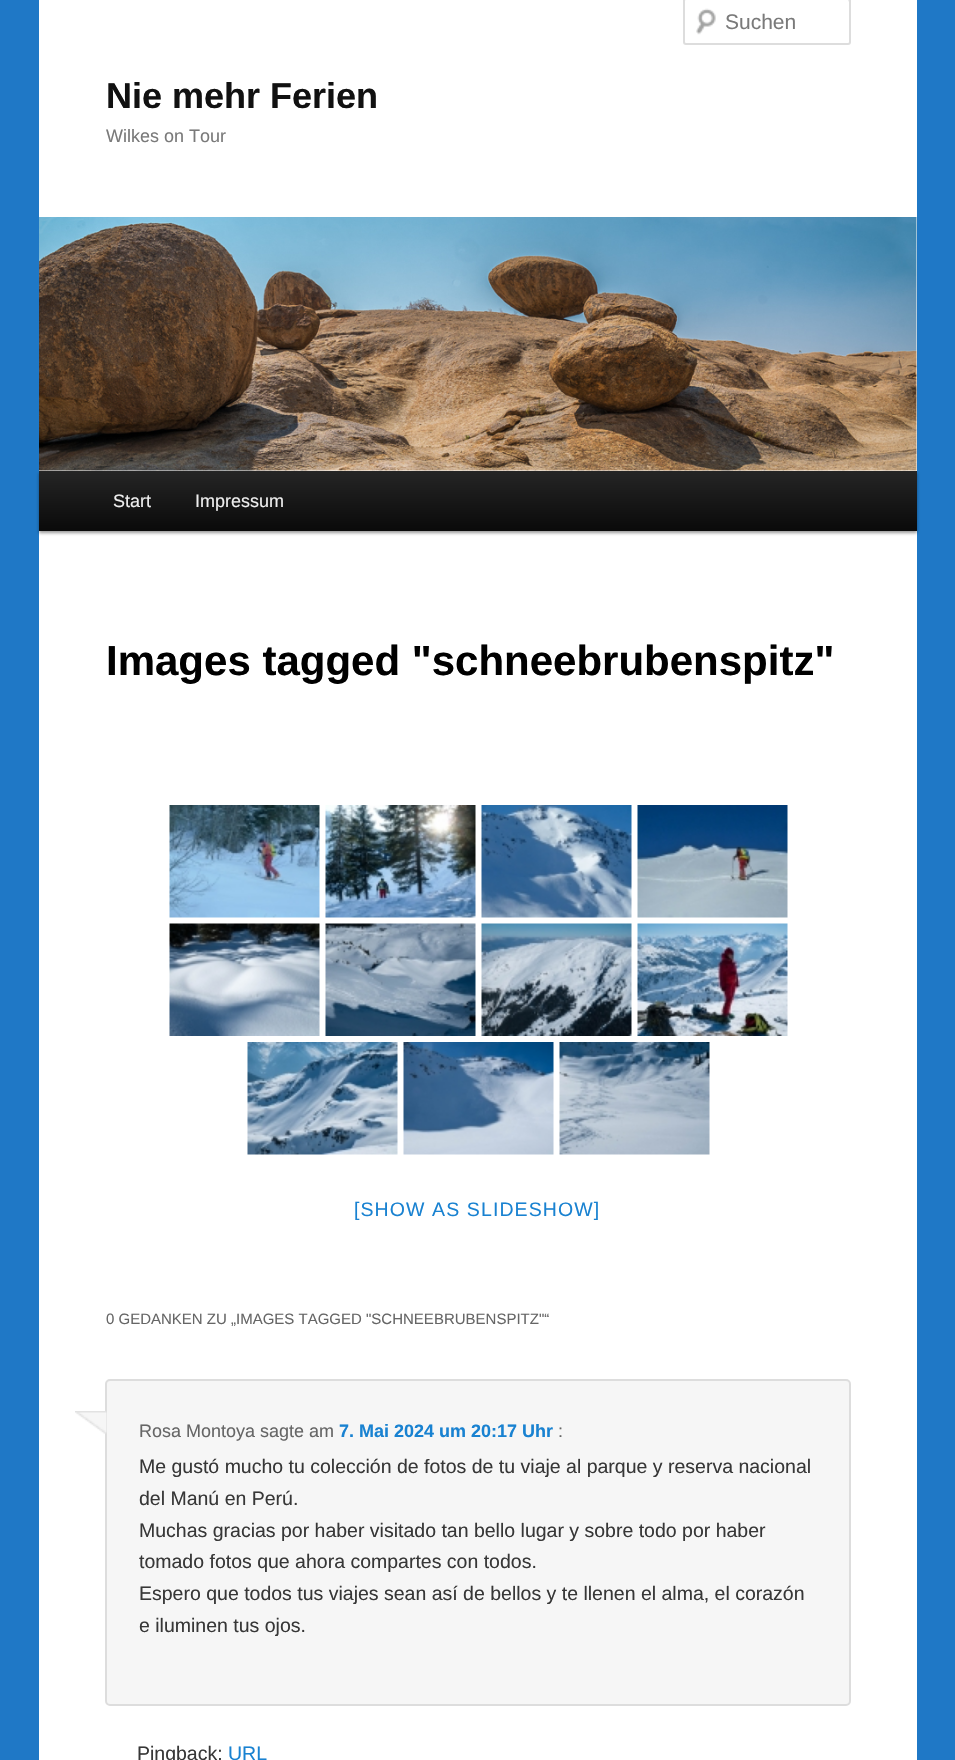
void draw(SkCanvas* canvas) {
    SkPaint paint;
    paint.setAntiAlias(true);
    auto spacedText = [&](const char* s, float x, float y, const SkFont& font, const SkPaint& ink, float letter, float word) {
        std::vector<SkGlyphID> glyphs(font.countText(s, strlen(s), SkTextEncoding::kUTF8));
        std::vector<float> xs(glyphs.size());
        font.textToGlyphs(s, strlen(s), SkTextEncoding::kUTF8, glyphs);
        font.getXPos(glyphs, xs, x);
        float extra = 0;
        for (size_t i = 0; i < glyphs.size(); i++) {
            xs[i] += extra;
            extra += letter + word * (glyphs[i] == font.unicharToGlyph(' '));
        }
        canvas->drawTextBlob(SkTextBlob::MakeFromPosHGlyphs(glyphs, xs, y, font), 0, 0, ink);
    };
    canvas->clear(0xFF1F78C6);
    paint.setColor(0xFFFFFFFF);
    canvas->drawRect(SkRect::MakeXYWH(39, 0, 878, 1760), paint);
    canvas->drawImageRect(SkImages::DeferredFromEncodedData(SkData::MakeFromFileName("img1.png")), SkRect::MakeXYWH(696, 8, 20, 27), SkSamplingOptions());
    paint.setColor(0xFFE6E6E6);
    canvas->drawPath(SkPathBuilder().moveTo(686, 0).lineTo(848, 0).lineTo(849, 2).lineTo(849, 0).cubicTo(849, 0, 848, -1, 848, -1).lineTo(686, -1).cubicTo(685, -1, 684, 0, 684, 0).lineTo(684, 2).cubicTo(684, 1, 685, 0, 686, 0).close().detach(), paint);
    paint.setStyle(SkPaint::kStroke_Style);
    paint.setStrokeWidth(2);
    paint.setColor(0xFFDDDDDD);
    canvas->drawRoundRect(SkRect::MakeXYWH(684, -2, 166, 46), 2, 2, paint);
    SkFont font1(fontMgr->matchFamilyStyle("Liberation Sans", SkFontStyle::Normal()), 21);
    font1.setSubpixel(true);
    paint.setStyle(SkPaint::kFill_Style);
    paint.setColor(0xFF7A7A7A);
    canvas->drawString("Suchen", 725, 29, font1, paint);
    SkFont font2(fontMgr->matchFamilyStyle("Liberation Sans", SkFontStyle::Bold()), 36);
    font2.setSubpixel(true);
    paint.setColor(0xFF111111);
    canvas->drawString("Nie mehr Ferien", 106, 108, font2, paint);
    SkFont font3(fontMgr->matchFamilyStyle("Liberation Sans", SkFontStyle::Normal()), 18);
    font3.setSubpixel(true);
    paint.setColor(0xFF7A7A7A);
    canvas->drawString("Wilkes on Tour", 106, 142, font3, paint);
    paint.setColor(0x66000000);
    paint.setMaskFilter(SkMaskFilter::MakeBlur(kNormal_SkBlurStyle, 1.5f));
    canvas->drawRect(SkRect::MakeXYWH(39, 473, 878, 60), paint);
    paint.setMaskFilter(nullptr);
    canvas->drawImageRect(SkImages::DeferredFromEncodedData(SkData::MakeFromFileName("img2.png")), SkRect::MakeXYWH(39, 217, 878, 254), SkSamplingOptions());
    {
        const SkColor colors[] = {0xFF252525, 0xFF0A0A0A};
        const float stops[] = {0, 1};
        const SkPoint ends[] = {{478, 471}, {478, 531}};
        paint.setShader(SkGradientShader::MakeLinear(ends, colors, stops, 2, SkTileMode::kClamp));
        paint.setAlpha(255);
    }
    canvas->drawRect(SkRect::MakeXYWH(39, 471, 878, 60), paint);
    paint.setShader(nullptr);
    paint.setColor(0xFFEEEEEE);
    canvas->drawString("Start", 113, 507, font3, paint);
    canvas->drawString("Impressum", 195, 507, font3, paint);
    SkFont font4(fontMgr->matchFamilyStyle("Liberation Sans", SkFontStyle::Bold()), 42);
    font4.setSubpixel(true);
    paint.setColor(0xFF000000);
    canvas->drawString("Images tagged \"schneebrubenspitz\"", 106, 675, font4, paint);
    canvas->drawImageRect(SkImages::DeferredFromEncodedData(SkData::MakeFromFileName("img3.png")), SkRect::MakeXYWH(169, 805, 151, 113), SkSamplingOptions());
    canvas->drawImageRect(SkImages::DeferredFromEncodedData(SkData::MakeFromFileName("img4.png")), SkRect::MakeXYWH(325, 805, 151, 113), SkSamplingOptions());
    canvas->drawImageRect(SkImages::DeferredFromEncodedData(SkData::MakeFromFileName("img5.png")), SkRect::MakeXYWH(481, 805, 151, 113), SkSamplingOptions());
    canvas->drawImageRect(SkImages::DeferredFromEncodedData(SkData::MakeFromFileName("img6.png")), SkRect::MakeXYWH(637, 805, 151, 113), SkSamplingOptions());
    canvas->drawImageRect(SkImages::DeferredFromEncodedData(SkData::MakeFromFileName("img7.png")), SkRect::MakeXYWH(169, 923, 151, 113), SkSamplingOptions());
    canvas->drawImageRect(SkImages::DeferredFromEncodedData(SkData::MakeFromFileName("img8.png")), SkRect::MakeXYWH(325, 923, 151, 113), SkSamplingOptions());
    canvas->drawImageRect(SkImages::DeferredFromEncodedData(SkData::MakeFromFileName("img9.png")), SkRect::MakeXYWH(481, 923, 151, 113), SkSamplingOptions());
    canvas->drawImageRect(SkImages::DeferredFromEncodedData(SkData::MakeFromFileName("img10.png")), SkRect::MakeXYWH(637, 923, 151, 113), SkSamplingOptions());
    canvas->drawImageRect(SkImages::DeferredFromEncodedData(SkData::MakeFromFileName("img11.png")), SkRect::MakeXYWH(247, 1042, 151, 113), SkSamplingOptions());
    canvas->drawImageRect(SkImages::DeferredFromEncodedData(SkData::MakeFromFileName("img12.png")), SkRect::MakeXYWH(403, 1042, 151, 113), SkSamplingOptions());
    canvas->drawImageRect(SkImages::DeferredFromEncodedData(SkData::MakeFromFileName("img13.png")), SkRect::MakeXYWH(559, 1042, 151, 113), SkSamplingOptions());
    SkFont font5(fontMgr->matchFamilyStyle("Liberation Sans", SkFontStyle::Normal()), 19.5f);
    font5.setSubpixel(true);
    paint.setColor(0xFF1982D1);
    spacedText("[SHOW AS SLIDESHOW]", 354, 1216, font5, paint, 1.1f, 0);
    SkFont font6(fontMgr->matchFamilyStyle("Liberation Sans", SkFontStyle::Normal()), 15);
    font6.setSubpixel(true);
    paint.setColor(0xFF666666);
    canvas->drawString("0 GEDANKEN ZU „IMAGES TAGGED \"SCHNEEBRUBENSPITZ\"“", 106, 1324, font6, paint);
    paint.setColor(0xFFF6F6F6);
    canvas->drawRoundRect(SkRect::MakeXYWH(106, 1380, 744, 325), 4, 4, paint);
    paint.setStyle(SkPaint::kStroke_Style);
    paint.setColor(0xFFDDDDDD);
    canvas->drawRoundRect(SkRect::MakeXYWH(106, 1380, 744, 325), 4, 4, paint);
    canvas->drawImageRect(SkImages::DeferredFromEncodedData(SkData::MakeFromFileName("img14.png")), SkRect::MakeXYWH(75, 1411, 32, 23), SkSamplingOptions());
    paint.setStyle(SkPaint::kFill_Style);
    paint.setColor(0xFF666666);
    canvas->drawString("Rosa Montoya sagte am", 139, 1437, font3, paint);
    SkFont font7(fontMgr->matchFamilyStyle("Liberation Sans", SkFontStyle::Bold()), 18);
    font7.setSubpixel(true);
    paint.setColor(0xFF1982D1);
    canvas->drawString("7. Mai 2024 um 20:17 Uhr", 339, 1437, font7, paint);
    paint.setColor(0xFF666666);
    canvas->drawString(":", 558, 1437, font3, paint);
    paint.setColor(0xFF373737);
    canvas->drawString("Me gustó mucho tu colección de fotos de tu viaje al parque y reserva nacional", 139, 1473, font5, paint);
    canvas->drawString("del Manú en Perú.", 139, 1505, font5, paint);
    canvas->drawString("Muchas gracias por haber visitado tan bello lugar y sobre todo por haber", 139, 1537, font5, paint);
    canvas->drawString("tomado fotos que ahora compartes con todos.", 139, 1568, font5, paint);
    canvas->drawString("Espero que todos tus viajes sean así de bellos y te llenen el alma, el corazón", 139, 1600, font5, paint);
    canvas->drawString("e iluminen tus ojos.", 139, 1632, font5, paint);
    canvas->drawString("Pingback:", 137, 1760, font5, paint);
    paint.setColor(0xFF1982D1);
    canvas->drawString("URL", 228, 1760, font5, paint);
}
